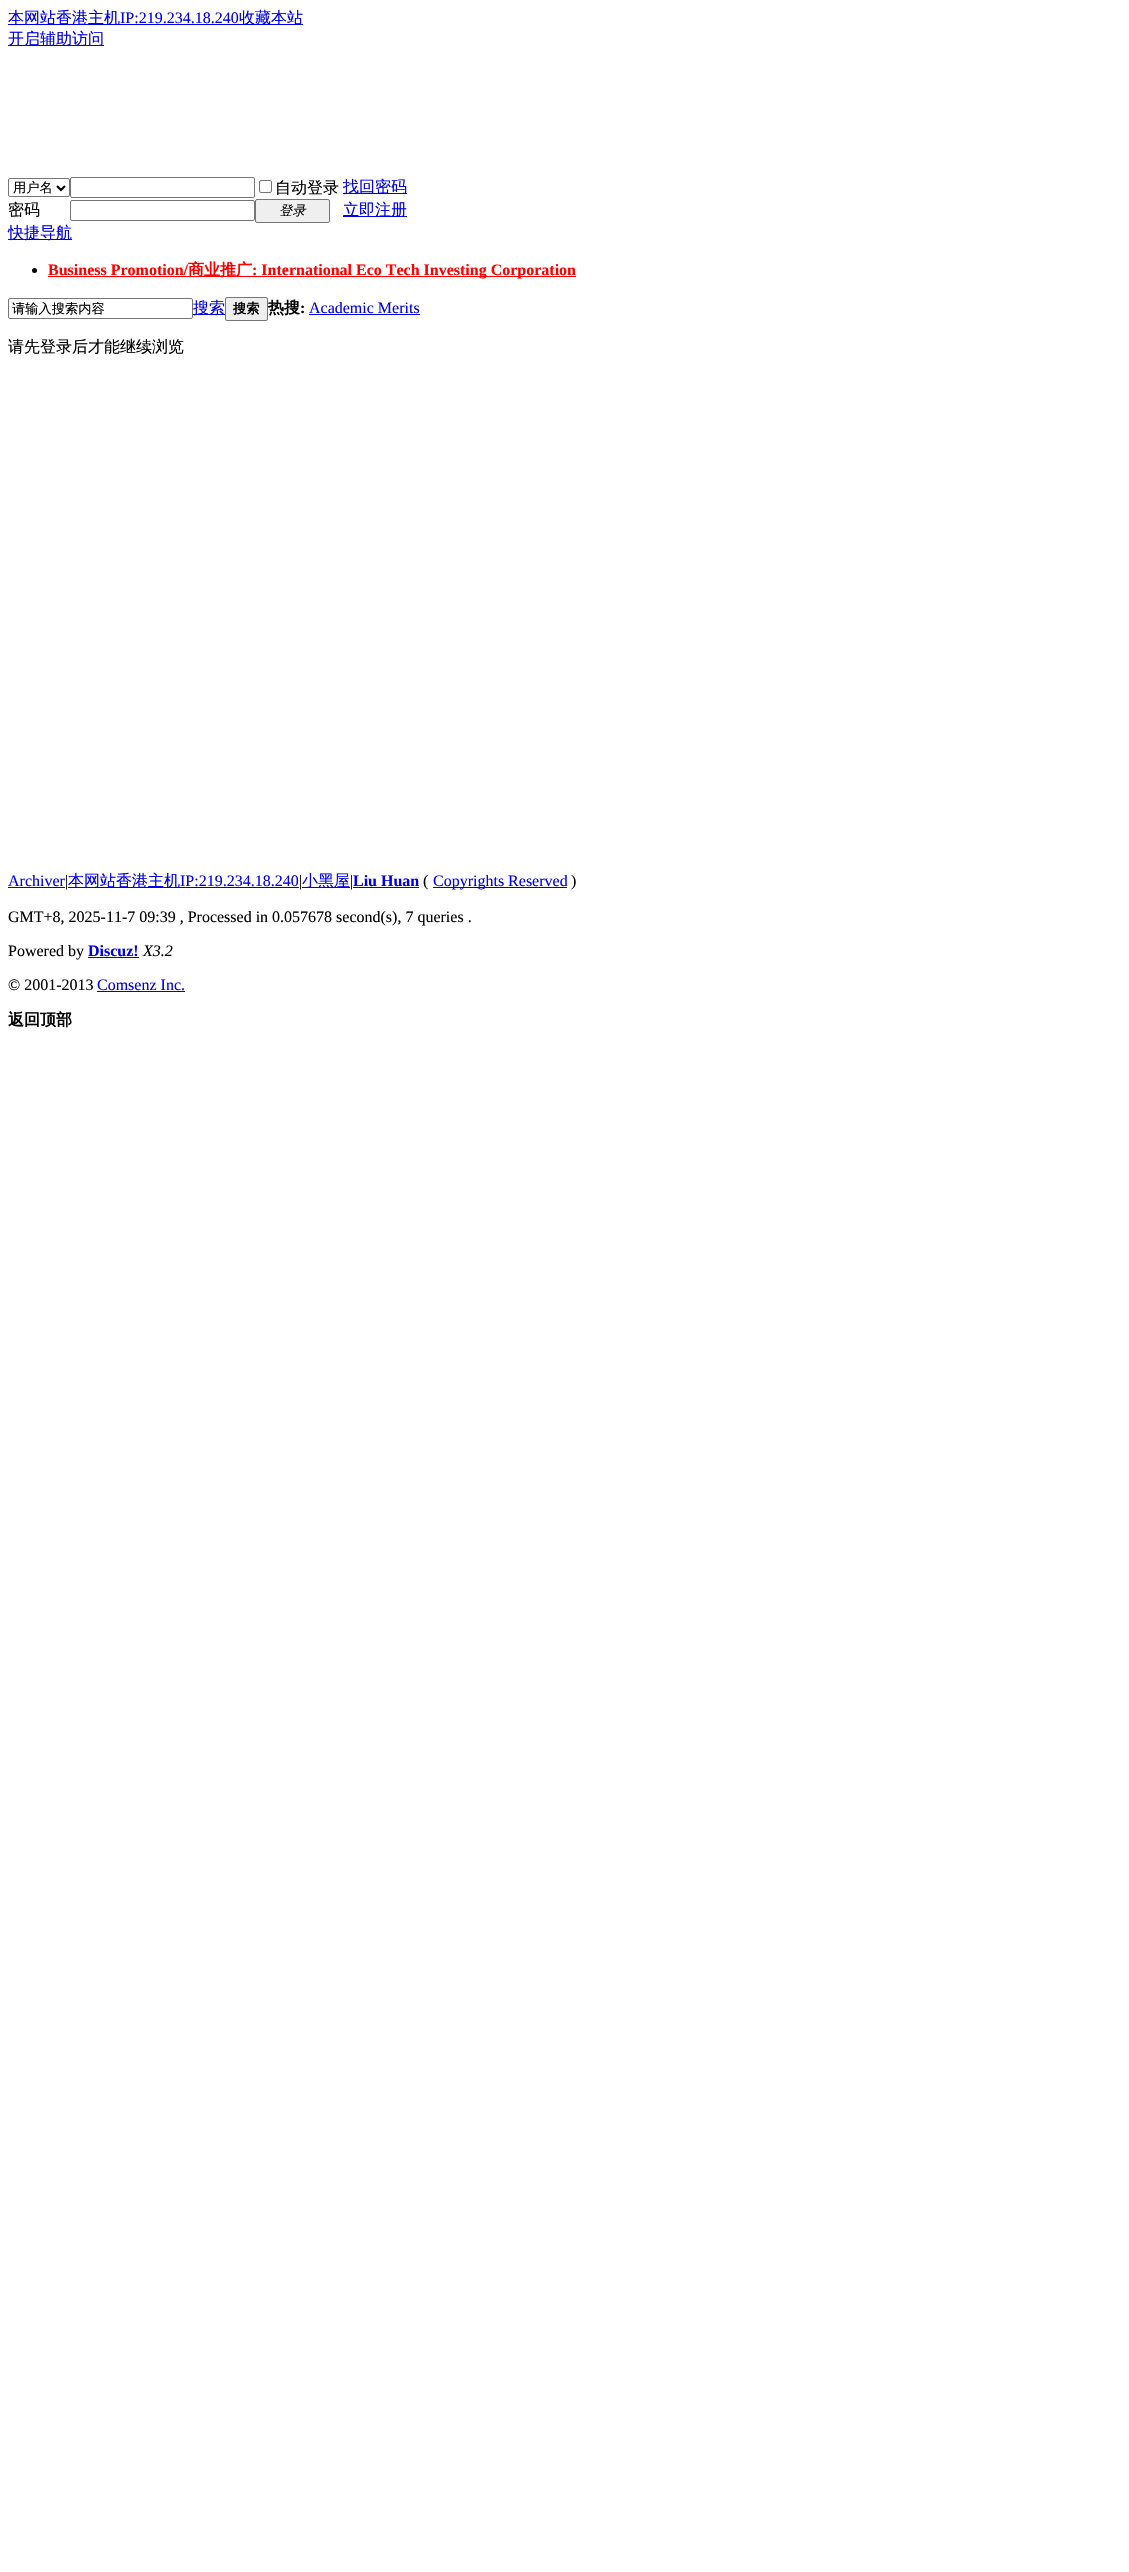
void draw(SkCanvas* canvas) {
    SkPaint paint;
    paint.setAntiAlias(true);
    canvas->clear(0xFFFFFFFF);
    paint.setColor(0xFF0000EE);
    canvas->drawRect(SkRect::MakeXYWH(8, 24, 295, 1), paint);
    SkFont font1(fontMgr->matchFamilyStyle("WenQuanYi Zen Hei", SkFontStyle(500, SkFontStyle::kNormal_Width, SkFontStyle::kUpright_Slant)), 16);
    font1.setSubpixel(true);
    canvas->drawString("本网站香港主机", 8, 23, font1, paint);
    SkFont font2(fontMgr->matchFamilyStyle("Liberation Serif", SkFontStyle::Normal()), 16);
    font2.setSubpixel(true);
    canvas->drawString("IP:219.234.18.240", 120, 23, font2, paint);
    canvas->drawString("收藏本站", 239, 23, font1, paint);
    canvas->drawRect(SkRect::MakeXYWH(8, 45, 96, 1), paint);
    canvas->drawString("开启辅助访问", 8, 44, font1, paint);
    paint.setStyle(SkPaint::kStroke_Style);
    paint.setStrokeWidth(1);
    paint.setColor(0xFF767676);
    canvas->drawRoundRect(SkRect::MakeXYWH(8.5f, 178.5f, 61, 18), 1.5f, 1.5f, paint);
    paint.setStrokeWidth(2);
    paint.setColor(0xFF000000);
    canvas->drawPath(SkPathBuilder().moveTo(57, 186).lineTo(61, 190).lineTo(65, 186).detach(), paint);
    SkFont font3(fontMgr->matchFamilyStyle("WenQuanYi Zen Hei", SkFontStyle(500, SkFontStyle::kNormal_Width, SkFontStyle::kUpright_Slant)), 13.25f);
    font3.setSubpixel(true);
    paint.setStyle(SkPaint::kFill_Style);
    canvas->drawString("用户名", 13, 192, font3, paint);
    paint.setStyle(SkPaint::kStroke_Style);
    paint.setStrokeWidth(1);
    paint.setColor(0xFF767676);
    canvas->drawRoundRect(SkRect::MakeXYWH(70.5f, 177.5f, 184, 20), 1.5f, 1.5f, paint);
    canvas->drawRoundRect(SkRect::MakeXYWH(259.5f, 180.5f, 12, 12), 1.5f, 1.5f, paint);
    paint.setStyle(SkPaint::kFill_Style);
    paint.setColor(0xFF000000);
    canvas->drawString("自动登录", 275, 193, font1, paint);
    paint.setColor(0xFF0000EE);
    canvas->drawRect(SkRect::MakeXYWH(343, 193, 64, 1), paint);
    canvas->drawString("找回密码", 343, 192, font1, paint);
    paint.setColor(0xFF000000);
    canvas->drawString("密码", 8, 215, font1, paint);
    paint.setStyle(SkPaint::kStroke_Style);
    paint.setColor(0xFF767676);
    canvas->drawRoundRect(SkRect::MakeXYWH(70.5f, 200.5f, 184, 20), 1.5f, 1.5f, paint);
    paint.setStyle(SkPaint::kFill_Style);
    paint.setColor(0xFFEFEFEF);
    canvas->drawRoundRect(SkRect::MakeXYWH(255.5f, 199.5f, 74, 23), 1.5f, 1.5f, paint);
    paint.setStyle(SkPaint::kStroke_Style);
    paint.setColor(0xFF767676);
    canvas->drawRoundRect(SkRect::MakeXYWH(255.5f, 199.5f, 74, 23), 1.5f, 1.5f, paint);
    SkFont font4(fontMgr->matchFamilyStyle("WenQuanYi Zen Hei", SkFontStyle(500, SkFontStyle::kNormal_Width, SkFontStyle::kItalic_Slant)), 13.25f);
    font4.setSubpixel(true);
    paint.setStyle(SkPaint::kFill_Style);
    paint.setColor(0xFF000000);
    canvas->drawString("登录", 279, 215, font4, paint);
    paint.setColor(0xFF0000EE);
    canvas->drawRect(SkRect::MakeXYWH(343, 216, 64, 1), paint);
    canvas->drawString("立即注册", 343, 215, font1, paint);
    canvas->drawRect(SkRect::MakeXYWH(8, 239, 64, 1), paint);
    canvas->drawString("快捷导航", 8, 238, font1, paint);
    paint.setColor(0xFF000000);
    canvas->drawCircle(34.5f, 270.5f, 2.5f, paint);
    SkFont font5(fontMgr->matchFamilyStyle("Liberation Serif", SkFontStyle::Bold()), 16);
    font5.setSubpixel(true);
    paint.setColor(0xFFFF0000);
    canvas->drawString("Business Promotion/", 48, 275, font5, paint);
    canvas->drawRect(SkRect::MakeXYWH(48, 276, 528, 1), paint);
    SkFont font6(fontMgr->matchFamilyStyle("WenQuanYi Zen Hei", SkFontStyle::Bold()), 16);
    font6.setSubpixel(true);
    canvas->drawString("商业推广", 188, 275, font6, paint);
    canvas->drawString(": International Eco Tech Investing Corporation", 252, 275, font5, paint);
    paint.setStyle(SkPaint::kStroke_Style);
    paint.setColor(0xFF767676);
    canvas->drawRoundRect(SkRect::MakeXYWH(8.5f, 298.5f, 184, 20), 1.5f, 1.5f, paint);
    paint.setStyle(SkPaint::kFill_Style);
    paint.setColor(0xFF000000);
    canvas->drawString("请输入搜索内容", 12, 313, font3, paint);
    paint.setColor(0xFF0000EE);
    canvas->drawRect(SkRect::MakeXYWH(193, 314, 32, 1), paint);
    canvas->drawString("搜索", 193, 313, font1, paint);
    paint.setColor(0xFFEFEFEF);
    canvas->drawRoundRect(SkRect::MakeXYWH(225.5f, 297.5f, 42, 23), 1.5f, 1.5f, paint);
    paint.setStyle(SkPaint::kStroke_Style);
    paint.setColor(0xFF767676);
    canvas->drawRoundRect(SkRect::MakeXYWH(225.5f, 297.5f, 42, 23), 1.5f, 1.5f, paint);
    SkFont font7(fontMgr->matchFamilyStyle("WenQuanYi Zen Hei", SkFontStyle::Bold()), 13.25f);
    font7.setSubpixel(true);
    paint.setStyle(SkPaint::kFill_Style);
    paint.setColor(0xFF000000);
    canvas->drawString("搜索", 233, 313, font7, paint);
    canvas->drawString("热搜", 268, 313, font6, paint);
    canvas->drawString(":", 300, 313, font5, paint);
    paint.setColor(0xFF0000EE);
    canvas->drawString("Academic Merits", 309, 313, font2, paint);
    canvas->drawRect(SkRect::MakeXYWH(309, 314, 111, 1), paint);
    paint.setColor(0xFF000000);
    canvas->drawString("请先登录后才能继续浏览", 8, 352, font1, paint);
    paint.setColor(0xFF0000EE);
    canvas->drawString("Archiver", 8, 886, font2, paint);
    canvas->drawRect(SkRect::MakeXYWH(8, 887, 57, 1), paint);
    paint.setColor(0xFF000000);
    canvas->drawString("|", 65, 886, font2, paint);
    paint.setColor(0xFF0000EE);
    canvas->drawRect(SkRect::MakeXYWH(68, 887, 231, 1), paint);
    canvas->drawString("本网站香港主机", 68, 886, font1, paint);
    canvas->drawString("IP:219.234.18.240", 180, 886, font2, paint);
    paint.setColor(0xFF000000);
    canvas->drawString("|", 299, 886, font2, paint);
    paint.setColor(0xFF0000EE);
    canvas->drawRect(SkRect::MakeXYWH(302, 887, 48, 1), paint);
    canvas->drawString("小黑屋", 302, 886, font1, paint);
    paint.setColor(0xFF000000);
    canvas->drawString("|", 350, 886, font2, paint);
    paint.setColor(0xFF0000EE);
    canvas->drawString("Liu Huan", 353, 886, font5, paint);
    canvas->drawRect(SkRect::MakeXYWH(353, 887, 66, 1), paint);
    paint.setColor(0xFF000000);
    canvas->drawString("(", 423, 886, font2, paint);
    paint.setColor(0xFF0000EE);
    canvas->drawRect(SkRect::MakeXYWH(433, 887, 134, 1), paint);
    canvas->drawString("Copyrights Reserved", 433, 886, font2, paint);
    paint.setColor(0xFF000000);
    canvas->drawString(")", 571, 886, font2, paint);
    canvas->drawString("GMT+8, 2025-11-7 09:39 , Processed in 0.057678 second(s), 7 queries .", 8, 922, font2, paint);
    canvas->drawString("Powered by", 8, 956, font2, paint);
    paint.setColor(0xFF0000EE);
    canvas->drawString("Discuz!", 88, 956, font5, paint);
    canvas->drawRect(SkRect::MakeXYWH(88, 957, 51, 1), paint);
    SkFont font8(fontMgr->matchFamilyStyle("Liberation Serif", SkFontStyle::Italic()), 16);
    font8.setSubpixel(true);
    paint.setColor(0xFF000000);
    canvas->drawString("X3.2", 143, 956, font8, paint);
    canvas->drawString("© 2001-2013", 8, 990, font2, paint);
    paint.setColor(0xFF0000EE);
    canvas->drawString("Comsenz Inc.", 97, 990, font2, paint);
    canvas->drawRect(SkRect::MakeXYWH(97, 991, 88, 1), paint);
    paint.setColor(0xFF000000);
    canvas->drawString("返回顶部", 8, 1025, font6, paint);
}
